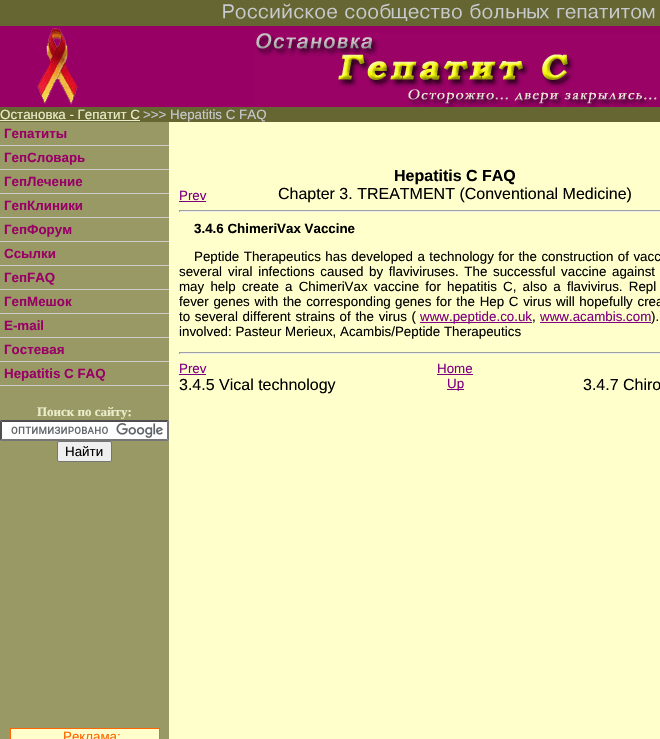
void draw(SkCanvas* canvas) {
    SkPaint paint;
    paint.setAntiAlias(true);
    auto spacedText = [&](const char* s, float x, float y, const SkFont& font, const SkPaint& ink, float letter, float word) {
        std::vector<SkGlyphID> glyphs(font.countText(s, strlen(s), SkTextEncoding::kUTF8));
        std::vector<float> xs(glyphs.size());
        font.textToGlyphs(s, strlen(s), SkTextEncoding::kUTF8, glyphs);
        font.getXPos(glyphs, xs, x);
        float extra = 0;
        for (size_t i = 0; i < glyphs.size(); i++) {
            xs[i] += extra;
            extra += letter + word * (glyphs[i] == font.unicharToGlyph(' '));
        }
        canvas->drawTextBlob(SkTextBlob::MakeFromPosHGlyphs(glyphs, xs, y, font), 0, 0, ink);
    };
    canvas->clear(0xFF666633);
    canvas->drawImageRect(SkImages::DeferredFromEncodedData(SkData::MakeFromFileName("img1.png")), SkRect::MakeXYWH(223, 3, 432, 18), SkSamplingOptions());
    paint.setColor(0xFF990066);
    canvas->drawRect(SkRect::MakeXYWH(0, 26, 660, 81), paint);
    canvas->drawImageRect(SkImages::DeferredFromEncodedData(SkData::MakeFromFileName("img2.png")), SkRect::MakeXYWH(32, 26, 52, 81), SkSamplingOptions());
    canvas->drawImageRect(SkImages::DeferredFromEncodedData(SkData::MakeFromFileName("img3.png")), SkRect::MakeXYWH(255, 33, 405, 74), SkSamplingOptions());
    SkFont font1(fontMgr->matchFamilyStyle("Liberation Sans", SkFontStyle::Normal()), 13.35f);
    font1.setSubpixel(true);
    paint.setColor(0xFFEAEDC9);
    canvas->drawString("Остановка - Гепатит С", 0, 119, font1, paint);
    canvas->drawRect(SkRect::MakeXYWH(0, 120, 140, 1), paint);
    paint.setColor(0xFFC7CACF);
    canvas->drawString(">>> Hepatitis C FAQ", 143, 119, font1, paint);
    paint.setColor(0xFF999966);
    canvas->drawRect(SkRect::MakeXYWH(0, 122, 169, 617), paint);
    SkFont font2(fontMgr->matchFamilyStyle("Liberation Sans", SkFontStyle::Bold()), 13.35f);
    font2.setSubpixel(true);
    paint.setColor(0xFF990066);
    canvas->drawString("Гепатиты", 4, 138, font2, paint);
    paint.setColor(0xFFCECDC9);
    canvas->drawRect(SkRect::MakeXYWH(0, 145, 169, 1), paint);
    paint.setColor(0xFF990066);
    canvas->drawString("ГепСловарь", 4, 162, font2, paint);
    paint.setColor(0xFFCECDC9);
    canvas->drawRect(SkRect::MakeXYWH(0, 169, 169, 1), paint);
    paint.setColor(0xFF990066);
    canvas->drawString("ГепЛечение", 4, 186, font2, paint);
    paint.setColor(0xFFCECDC9);
    canvas->drawRect(SkRect::MakeXYWH(0, 193, 169, 1), paint);
    paint.setColor(0xFF990066);
    canvas->drawString("ГепКлиники", 4, 210, font2, paint);
    paint.setColor(0xFFCECDC9);
    canvas->drawRect(SkRect::MakeXYWH(0, 217, 169, 1), paint);
    paint.setColor(0xFF990066);
    canvas->drawString("ГепФорум", 4, 234, font2, paint);
    paint.setColor(0xFFCECDC9);
    canvas->drawRect(SkRect::MakeXYWH(0, 241, 169, 1), paint);
    paint.setColor(0xFF990066);
    canvas->drawString("Ссылки", 4, 258, font2, paint);
    paint.setColor(0xFFCECDC9);
    canvas->drawRect(SkRect::MakeXYWH(0, 265, 169, 1), paint);
    paint.setColor(0xFF990066);
    canvas->drawString("ГепFAQ", 4, 282, font2, paint);
    paint.setColor(0xFFCECDC9);
    canvas->drawRect(SkRect::MakeXYWH(0, 289, 169, 1), paint);
    paint.setColor(0xFF990066);
    canvas->drawString("ГепМешок", 4, 306, font2, paint);
    paint.setColor(0xFFCECDC9);
    canvas->drawRect(SkRect::MakeXYWH(0, 313, 169, 1), paint);
    paint.setColor(0xFF990066);
    canvas->drawString("E-mail", 4, 330, font2, paint);
    paint.setColor(0xFFCECDC9);
    canvas->drawRect(SkRect::MakeXYWH(0, 337, 169, 1), paint);
    paint.setColor(0xFF990066);
    canvas->drawString("Гостевая", 4, 354, font2, paint);
    paint.setColor(0xFFCECDC9);
    canvas->drawRect(SkRect::MakeXYWH(0, 361, 169, 1), paint);
    paint.setColor(0xFF990066);
    canvas->drawString("Hepatitis C FAQ", 4, 378, font2, paint);
    paint.setColor(0xFFCECDC9);
    canvas->drawRect(SkRect::MakeXYWH(0, 385, 169, 1), paint);
    SkFont font3(fontMgr->matchFamilyStyle("Liberation Serif", SkFontStyle::Bold()), 13);
    font3.setSubpixel(true);
    paint.setColor(0xFFEAEDC9);
    canvas->drawString("Поиск по сайту:", 37, 416, font3, paint);
    paint.setColor(0xFFFFFFFF);
    canvas->drawRect(SkRect::MakeXYWH(0, 420, 169, 21), paint);
    canvas->drawImageRect(SkImages::DeferredFromEncodedData(SkData::MakeFromFileName("img4.png")), SkRect::MakeXYWH(11, 423, 152, 15), SkSamplingOptions());
    paint.setColor(0xFF4F4F4F);
    canvas->drawPath(SkPathBuilder().moveTo(0, 420).lineTo(169, 420).lineTo(167, 422).lineTo(2, 422).close().detach(), paint);
    paint.setColor(0xFF767676);
    canvas->drawPath(SkPathBuilder().moveTo(169, 420).lineTo(169, 441).lineTo(167, 439).lineTo(167, 422).close().detach(), paint);
    canvas->drawPath(SkPathBuilder().moveTo(169, 441).lineTo(0, 441).lineTo(2, 439).lineTo(167, 439).close().detach(), paint);
    paint.setColor(0xFF4F4F4F);
    canvas->drawPath(SkPathBuilder().moveTo(0, 441).lineTo(0, 420).lineTo(2, 422).lineTo(2, 439).close().detach(), paint);
    paint.setColor(0xFFEFEFEF);
    canvas->drawRoundRect(SkRect::MakeXYWH(57.5f, 441.5f, 54, 20), 1.5f, 1.5f, paint);
    paint.setStyle(SkPaint::kStroke_Style);
    paint.setStrokeWidth(1);
    paint.setColor(0xFF767676);
    canvas->drawRoundRect(SkRect::MakeXYWH(57.5f, 441.5f, 54, 20), 1.5f, 1.5f, paint);
    paint.setStyle(SkPaint::kFill_Style);
    paint.setColor(0xFF000000);
    canvas->drawString("Найти", 65, 456, font1, paint);
    paint.setColor(0xFFFF6600);
    canvas->drawRect(SkRect::MakeXYWH(10, 728, 150, 1), paint);
    canvas->drawRect(SkRect::MakeXYWH(159, 728, 1, 11), paint);
    canvas->drawRect(SkRect::MakeXYWH(10, 728, 1, 11), paint);
    paint.setColor(0xFFFFFFCC);
    canvas->drawRect(SkRect::MakeXYWH(11, 729, 148, 10), paint);
    paint.setColor(0xFFFF6600);
    canvas->drawString("Реклама:", 63, 741, font1, paint);
    paint.setColor(0xFFFFFFCC);
    canvas->drawRect(SkRect::MakeXYWH(169, 122, 491, 617), paint);
    SkFont font4(fontMgr->matchFamilyStyle("Liberation Sans", SkFontStyle::Bold()), 16);
    font4.setSubpixel(true);
    paint.setColor(0xFF000000);
    canvas->drawString("Hepatitis C FAQ", 394, 181, font4, paint);
    paint.setColor(0xFF800080);
    canvas->drawString("Prev", 179, 200, font1, paint);
    canvas->drawRect(SkRect::MakeXYWH(179, 201, 27, 1), paint);
    SkFont font5(fontMgr->matchFamilyStyle("Liberation Sans", SkFontStyle::Normal()), 16);
    font5.setSubpixel(true);
    paint.setColor(0xFF000000);
    canvas->drawString("Chapter 3. TREATMENT (Conventional Medicine)", 278, 199, font5, paint);
    paint.setColor(0xFF9F9F9F);
    canvas->drawRect(SkRect::MakeXYWH(179, 210, 481, 1), paint);
    paint.setColor(0xFFEEEEEE);
    canvas->drawRect(SkRect::MakeXYWH(179, 211, 481, 1), paint);
    paint.setColor(0xFF9F9F9F);
    canvas->drawRect(SkRect::MakeXYWH(179, 210, 1, 2), paint);
    paint.setColor(0xFF000000);
    canvas->drawString("3.4.6 ChimeriVax Vaccine", 194, 233, font2, paint);
    spacedText("Peptide Therapeutics has developed a technology for the construction of vacc", 194, 261, font1, paint, 0, 0.75f);
    canvas->drawString("several", 179, 276, font1, paint);
    spacedText("viral infections caused by flaviviruses. The successful vaccine against", 228, 276, font1, paint, 0, 2);
    spacedText("may help create", 179, 291, font1, paint, 0, 2.5f);
    spacedText("a ChimeriVax vaccine for hepatitis C, also a flavivirus. Repl", 285, 291, font1, paint, 0, 2.5f);
    spacedText("fever genes with the corresponding", 179, 306, font1, paint, 0, 1);
    spacedText("genes for the Hep C virus will hopefully crea", 395, 306, font1, paint, 0, 1);
    spacedText("to several different strains of the virus (", 179, 321, font1, paint, 0, 1);
    paint.setColor(0xFF800080);
    canvas->drawRect(SkRect::MakeXYWH(420, 322, 112, 1), paint);
    canvas->drawString("www.peptide.co.uk", 420, 321, font1, paint);
    paint.setColor(0xFF000000);
    canvas->drawString(",", 532, 321, font1, paint);
    paint.setColor(0xFF800080);
    canvas->drawRect(SkRect::MakeXYWH(540, 322, 111, 1), paint);
    canvas->drawString("www.acambis.com", 540, 321, font1, paint);
    paint.setColor(0xFF000000);
    spacedText(").", 651, 321, font1, paint, 0, 1);
    canvas->drawString("involved: Pasteur Merieux, Acambis/Peptide Therapeutics", 179, 336, font1, paint);
    paint.setColor(0xFF9F9F9F);
    canvas->drawRect(SkRect::MakeXYWH(179, 352, 481, 1), paint);
    paint.setColor(0xFFEEEEEE);
    canvas->drawRect(SkRect::MakeXYWH(179, 353, 481, 1), paint);
    paint.setColor(0xFF9F9F9F);
    canvas->drawRect(SkRect::MakeXYWH(179, 352, 1, 2), paint);
    paint.setColor(0xFF800080);
    canvas->drawString("Prev", 179, 373, font1, paint);
    canvas->drawRect(SkRect::MakeXYWH(179, 374, 27, 1), paint);
    canvas->drawString("Home", 437, 373, font1, paint);
    canvas->drawRect(SkRect::MakeXYWH(437, 374, 36, 1), paint);
    paint.setColor(0xFF000000);
    canvas->drawString("3.4.5 Vical technology", 179, 390, font5, paint);
    paint.setColor(0xFF800080);
    canvas->drawRect(SkRect::MakeXYWH(447, 389, 17, 1), paint);
    canvas->drawString("Up", 447, 388, font1, paint);
    paint.setColor(0xFF000000);
    canvas->drawString("3.4.7 Chiro", 583, 390, font5, paint);
}
